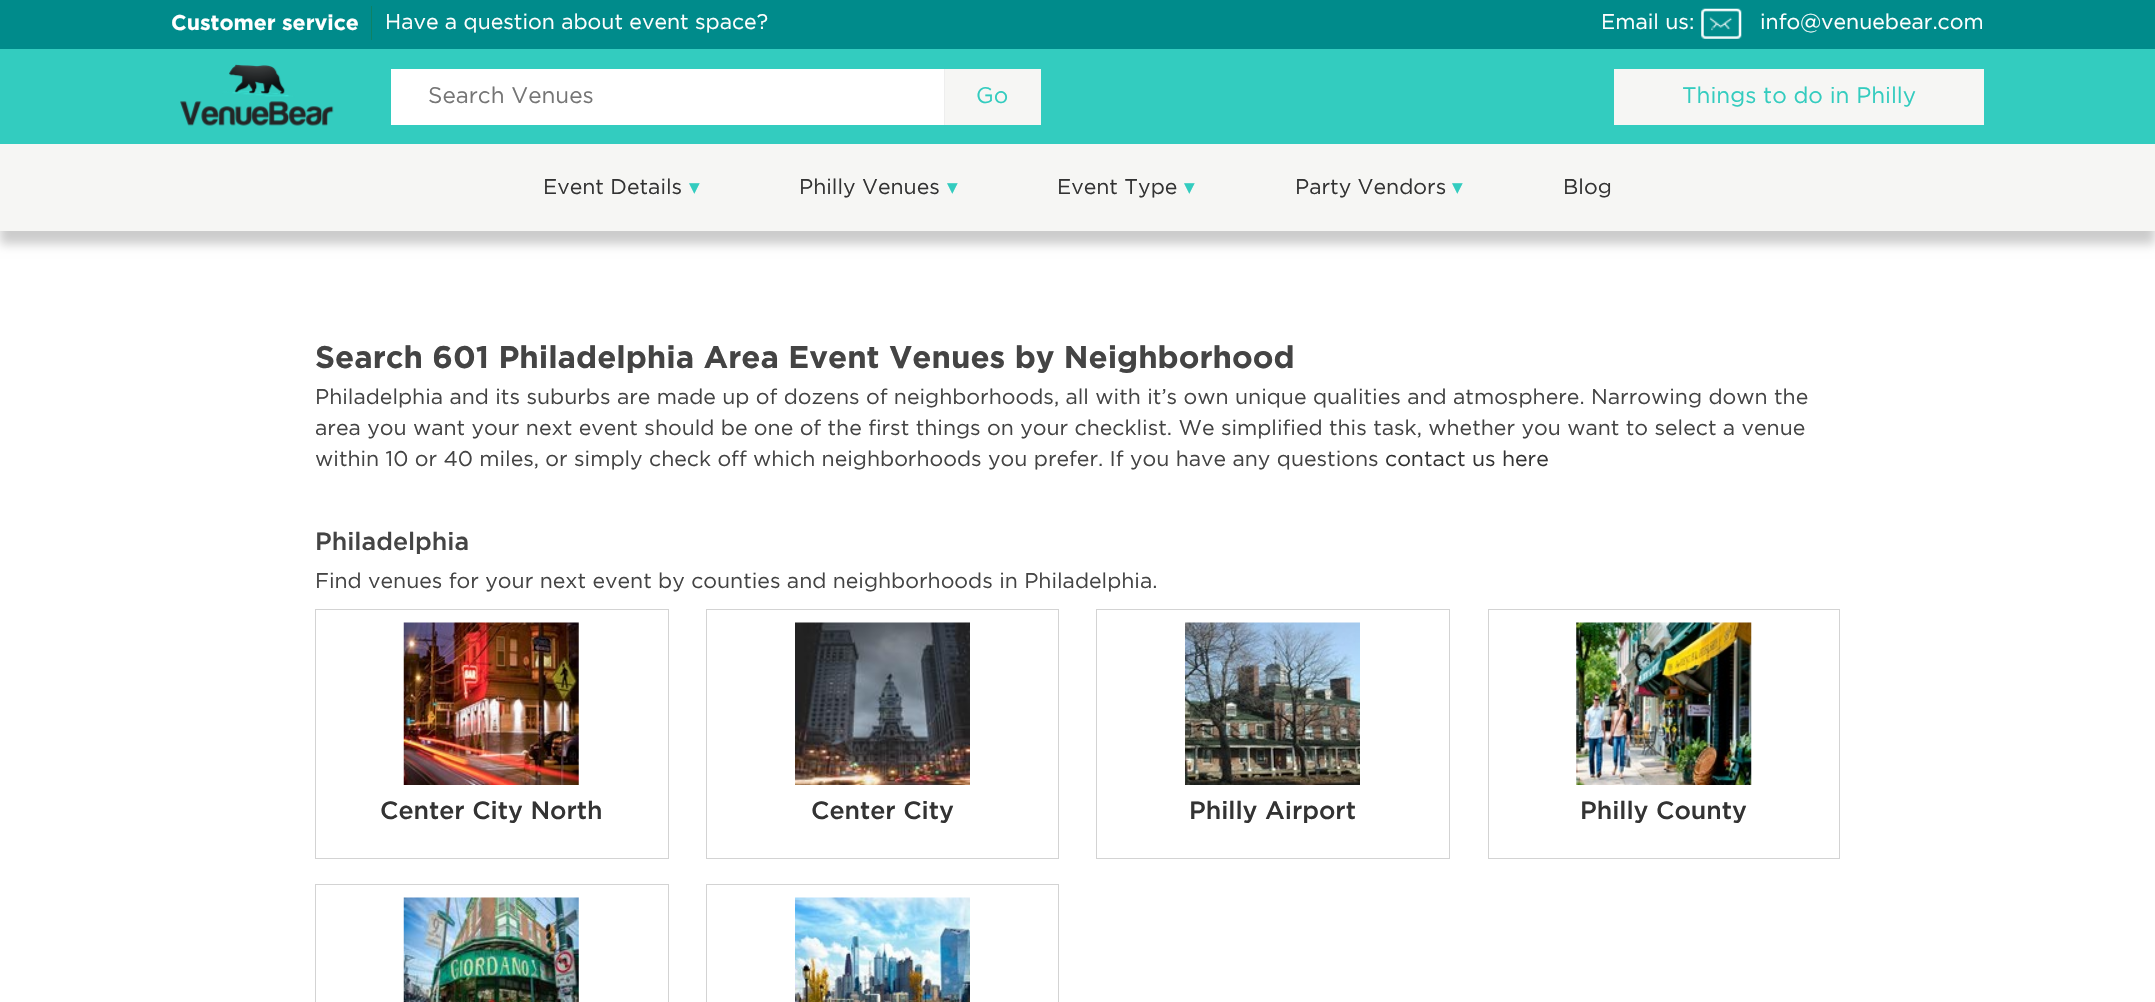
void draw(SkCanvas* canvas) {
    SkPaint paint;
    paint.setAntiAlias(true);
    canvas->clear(0xFFFFFFFF);
    paint.setColor(0x33000000);
    paint.setMaskFilter(SkMaskFilter::MakeBlur(kNormal_SkBlurStyle, 5));
    canvas->drawRect(SkRect::MakeXYWH(0, 156, 2155, 88), paint);
    paint.setMaskFilter(nullptr);
    paint.setColor(0xFF33CCBF);
    canvas->drawRect(SkRect::MakeXYWH(0, 49, 2155, 95), paint);
    paint.setColor(0xFF008B8B);
    canvas->drawRect(SkRect::MakeXYWH(0, 0, 2155, 49), paint);
    paint.setColor(0xFF0F8264);
    canvas->drawRect(SkRect::MakeXYWH(371, 6, 1, 34), paint);
    SkFont font1(fontMgr->matchFamilyStyle("Gotham", SkFontStyle::Bold()), 21.25f);
    font1.setSubpixel(true);
    paint.setColor(0xFFFFFFFF);
    canvas->drawString("Customer service", 171, 30, font1, paint);
    SkFont font2(fontMgr->matchFamilyStyle("Gotham", SkFontStyle::Normal()), 21.25f);
    font2.setSubpixel(true);
    canvas->drawString("Have a question about event space?", 385, 29, font2, paint);
    canvas->drawString("Email us:", 1601, 29, font2, paint);
    canvas->drawImageRect(SkImages::DeferredFromEncodedData(SkData::MakeFromFileName("img1.png")), SkRect::MakeXYWH(1701, 8, 41, 31), SkSamplingOptions());
    canvas->drawString("info@venuebear.com", 1760, 29, font2, paint);
    canvas->drawImageRect(SkImages::DeferredFromEncodedData(SkData::MakeFromFileName("img2.png")), SkRect::MakeXYWH(180, 64, 154, 62), SkSamplingOptions());
    canvas->drawRect(SkRect::MakeXYWH(391, 69, 553, 56), paint);
    SkFont font3(fontMgr->matchFamilyStyle("Gotham", SkFontStyle::Normal()), 22.5f);
    font3.setSubpixel(true);
    paint.setColor(0xFF757575);
    canvas->drawString("Search Venues", 428, 103, font3, paint);
    paint.setColor(0xFFF6F6F4);
    canvas->drawRect(SkRect::MakeXYWH(945, 69, 96, 56), paint);
    paint.setColor(0xFFEEEEEE);
    canvas->drawRect(SkRect::MakeXYWH(944, 69, 1, 56), paint);
    paint.setColor(0xFF33CCBF);
    canvas->drawString("Go", 976, 103, font3, paint);
    paint.setColor(0xFFF6F6F4);
    canvas->drawRect(SkRect::MakeXYWH(1614, 69, 370, 56), paint);
    paint.setColor(0xFF33CCBF);
    canvas->drawString("Things to do in Philly", 1682, 103, font3, paint);
    paint.setColor(0xFFF6F6F4);
    canvas->drawRect(SkRect::MakeXYWH(0, 144, 2155, 87), paint);
    paint.setColor(0xFF333333);
    canvas->drawString("Event Details", 543, 194, font2, paint);
    SkFont font4(fontMgr->matchFamilyStyle("DejaVu Sans", SkFontStyle::Normal()), 21.25f);
    font4.setSubpixel(true);
    paint.setColor(0xFF33CCBF);
    canvas->drawString("▾", 689, 194, font4, paint);
    paint.setColor(0xFF333333);
    canvas->drawString("Philly Venues", 799, 194, font2, paint);
    paint.setColor(0xFF33CCBF);
    canvas->drawString("▾", 947, 194, font4, paint);
    paint.setColor(0xFF333333);
    canvas->drawString("Event Type", 1057, 194, font2, paint);
    paint.setColor(0xFF33CCBF);
    canvas->drawString("▾", 1184, 194, font4, paint);
    paint.setColor(0xFF333333);
    canvas->drawString("Party Vendors", 1295, 194, font2, paint);
    paint.setColor(0xFF33CCBF);
    canvas->drawString("▾", 1452, 194, font4, paint);
    paint.setColor(0xFF333333);
    canvas->drawString("Blog", 1563, 194, font2, paint);
    SkFont font5(fontMgr->matchFamilyStyle("Gotham", SkFontStyle::Bold()), 31.25f);
    font5.setSubpixel(true);
    paint.setColor(0xFF444444);
    canvas->drawString("Search 601 Philadelphia Area Event Venues by Neighborhood", 315, 368, font5, paint);
    canvas->drawString("Philadelphia and its suburbs are made up of dozens of neighborhoods, all with it’s own unique qualities and atmosphere. Narrowing down the", 315, 404, font2, paint);
    canvas->drawString("area you want your next event should be one of the first things on your checklist. We simplified this task, whether you want to select a venue", 315, 435, font2, paint);
    canvas->drawString("within 10 or 40 miles, or simply check off which neighborhoods you prefer. If you have any questions", 315, 466, font2, paint);
    paint.setColor(0xFF333333);
    canvas->drawString("contact us here", 1385, 466, font2, paint);
    SkFont font6(fontMgr->matchFamilyStyle("Gotham", SkFontStyle(500, SkFontStyle::kNormal_Width, SkFontStyle::kUpright_Slant)), 25);
    font6.setSubpixel(true);
    paint.setColor(0xFF444444);
    canvas->drawString("Philadelphia", 315, 550, font6, paint);
    canvas->drawString("Find venues for your next event by counties and neighborhoods in Philadelphia.", 315, 588, font2, paint);
    paint.setStyle(SkPaint::kStroke_Style);
    paint.setStrokeWidth(1);
    paint.setColor(0xFFD3D3D3);
    canvas->drawRect(SkRect::MakeXYWH(315.5f, 609.5f, 353, 249), paint);
    canvas->drawImageRect(SkImages::DeferredFromEncodedData(SkData::MakeFromFileName("img3.png")), SkRect::MakeXYWH(403, 622, 176, 163), SkSamplingOptions());
    paint.setStyle(SkPaint::kFill_Style);
    paint.setColor(0xFF333333);
    canvas->drawString("Center City North", 380, 819, font6, paint);
    paint.setStyle(SkPaint::kStroke_Style);
    paint.setColor(0xFFD3D3D3);
    canvas->drawRect(SkRect::MakeXYWH(706.5f, 609.5f, 352, 249), paint);
    canvas->drawImageRect(SkImages::DeferredFromEncodedData(SkData::MakeFromFileName("img4.png")), SkRect::MakeXYWH(795, 622, 175, 163), SkSamplingOptions());
    paint.setStyle(SkPaint::kFill_Style);
    paint.setColor(0xFF333333);
    canvas->drawString("Center City", 811, 819, font6, paint);
    paint.setStyle(SkPaint::kStroke_Style);
    paint.setColor(0xFFD3D3D3);
    canvas->drawRect(SkRect::MakeXYWH(1096.5f, 609.5f, 353, 249), paint);
    canvas->drawImageRect(SkImages::DeferredFromEncodedData(SkData::MakeFromFileName("img5.png")), SkRect::MakeXYWH(1185, 622, 175, 163), SkSamplingOptions());
    paint.setStyle(SkPaint::kFill_Style);
    paint.setColor(0xFF333333);
    canvas->drawString("Philly Airport", 1189, 819, font6, paint);
    paint.setStyle(SkPaint::kStroke_Style);
    paint.setColor(0xFFD3D3D3);
    canvas->drawRect(SkRect::MakeXYWH(1488.5f, 609.5f, 351, 249), paint);
    canvas->drawImageRect(SkImages::DeferredFromEncodedData(SkData::MakeFromFileName("img6.png")), SkRect::MakeXYWH(1576, 622, 176, 163), SkSamplingOptions());
    paint.setStyle(SkPaint::kFill_Style);
    paint.setColor(0xFF333333);
    canvas->drawString("Philly County", 1580, 819, font6, paint);
    paint.setStyle(SkPaint::kStroke_Style);
    paint.setColor(0xFFD3D3D3);
    canvas->drawRect(SkRect::MakeXYWH(315.5f, 884.5f, 353, 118), paint);
    canvas->drawImageRect(SkImages::DeferredFromEncodedData(SkData::MakeFromFileName("img7.png")), SkRect::MakeXYWH(403, 897, 176, 105), SkSamplingOptions());
    canvas->drawRect(SkRect::MakeXYWH(706.5f, 884.5f, 352, 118), paint);
    canvas->drawImageRect(SkImages::DeferredFromEncodedData(SkData::MakeFromFileName("img8.png")), SkRect::MakeXYWH(795, 897, 175, 105), SkSamplingOptions());
}
